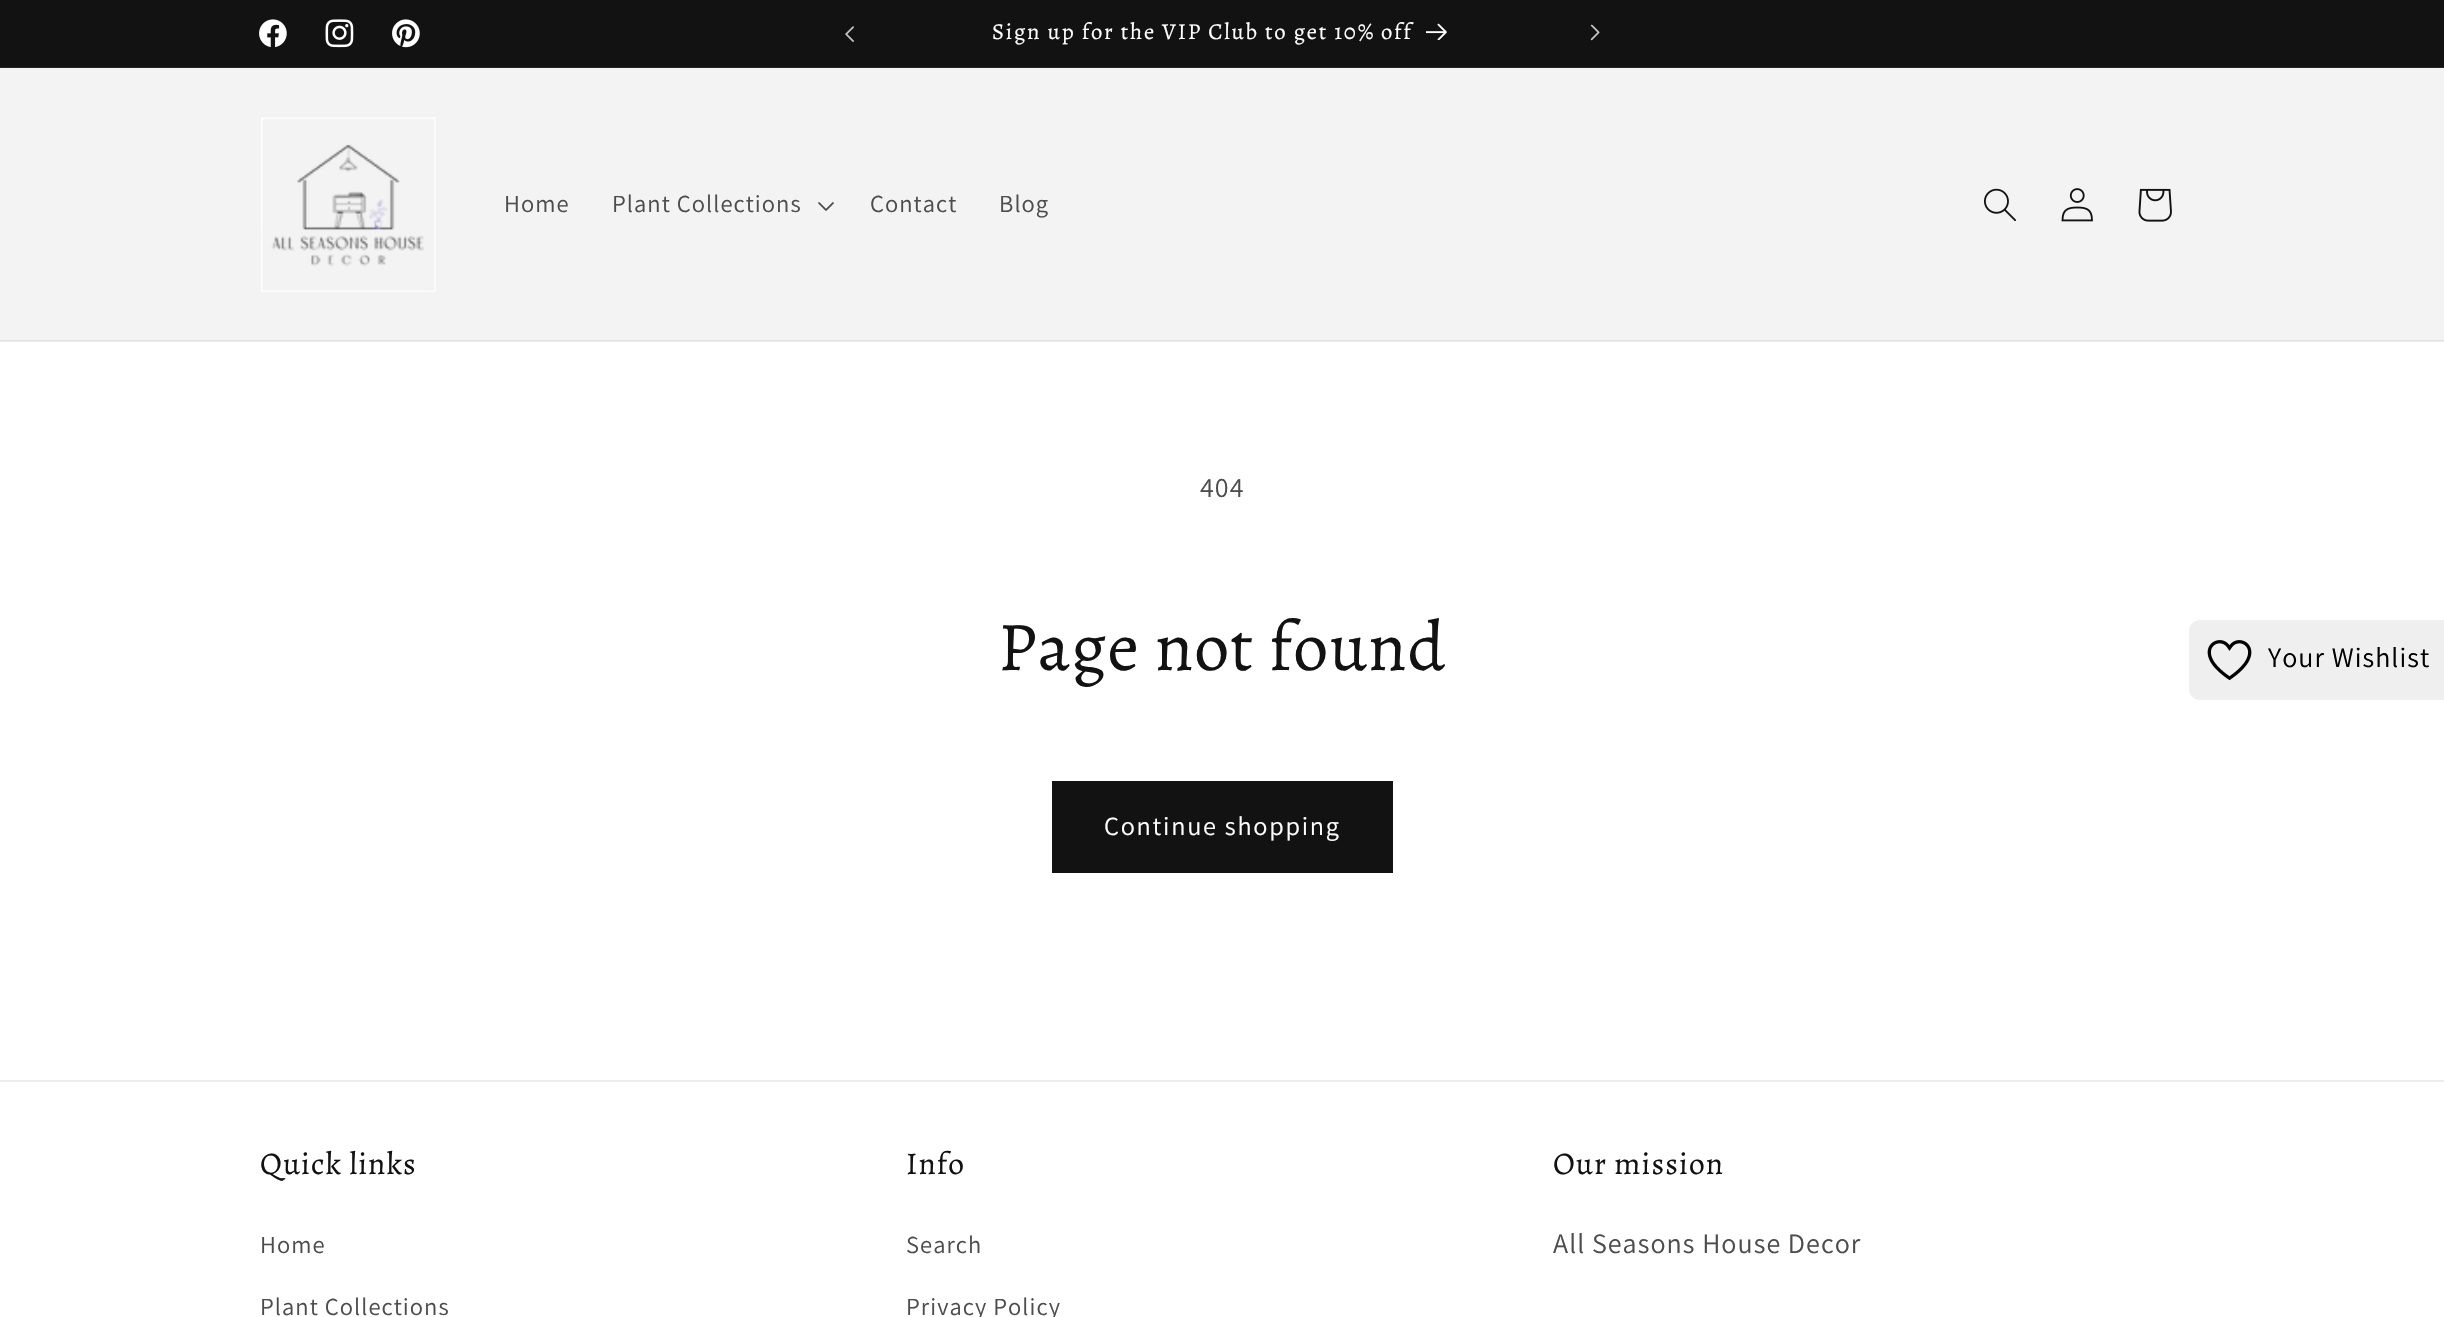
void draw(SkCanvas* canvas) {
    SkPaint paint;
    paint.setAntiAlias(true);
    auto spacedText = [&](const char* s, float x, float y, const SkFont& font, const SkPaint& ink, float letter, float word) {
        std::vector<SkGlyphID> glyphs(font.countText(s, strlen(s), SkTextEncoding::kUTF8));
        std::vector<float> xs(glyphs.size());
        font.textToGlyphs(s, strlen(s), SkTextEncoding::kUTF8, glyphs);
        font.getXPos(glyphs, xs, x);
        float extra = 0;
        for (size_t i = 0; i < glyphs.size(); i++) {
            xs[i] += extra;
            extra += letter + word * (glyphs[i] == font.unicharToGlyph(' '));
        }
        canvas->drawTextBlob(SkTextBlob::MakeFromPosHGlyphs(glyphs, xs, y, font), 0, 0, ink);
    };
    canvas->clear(0xFFFFFFFF);
    paint.setColor(0xFFECECEC);
    canvas->drawRect(SkRect::MakeXYWH(0, 341, 2444, 1), paint);
    paint.setColor(0xFF121212);
    canvas->drawRect(SkRect::MakeXYWH(0, 0, 2444, 67), paint);
    paint.setColor(0xFF252525);
    canvas->drawRect(SkRect::MakeXYWH(0, 67, 2444, 1), paint);
    canvas->drawImageRect(SkImages::DeferredFromEncodedData(SkData::MakeFromFileName("img1.png")), SkRect::MakeXYWH(259, 19, 28, 29), SkSamplingOptions());
    canvas->drawImageRect(SkImages::DeferredFromEncodedData(SkData::MakeFromFileName("img2.png")), SkRect::MakeXYWH(325, 19, 29, 29), SkSamplingOptions());
    canvas->drawImageRect(SkImages::DeferredFromEncodedData(SkData::MakeFromFileName("img3.png")), SkRect::MakeXYWH(392, 19, 28, 29), SkSamplingOptions());
    canvas->drawImageRect(SkImages::DeferredFromEncodedData(SkData::MakeFromFileName("img4.png")), SkRect::MakeXYWH(845, 26, 9, 16), SkSamplingOptions());
    SkFont font1(fontMgr->matchFamilyStyle("Alegreya", SkFontStyle::Normal()), 22.75f);
    font1.setSubpixel(true);
    paint.setColor(0xFFFFFFFF);
    spacedText("Sign up for the VIP Club to get 10% off", 992, 39, font1, paint, 1.75f, 0);
    canvas->drawImageRect(SkImages::DeferredFromEncodedData(SkData::MakeFromFileName("img5.png")), SkRect::MakeXYWH(1426, 23, 21, 17), SkSamplingOptions());
    canvas->drawImageRect(SkImages::DeferredFromEncodedData(SkData::MakeFromFileName("img6.png")), SkRect::MakeXYWH(1590, 24, 10, 17), SkSamplingOptions());
    paint.setColor(0xFFF3F3F3);
    canvas->drawRect(SkRect::MakeXYWH(0, 69, 2444, 271), paint);
    paint.setColor(0xFFF4F4F4);
    canvas->drawRect(SkRect::MakeXYWH(0, 68, 2444, 1), paint);
    paint.setColor(0xFFE1E1E1);
    canvas->drawRect(SkRect::MakeXYWH(0, 340, 2444, 1), paint);
    canvas->drawImageRect(SkImages::DeferredFromEncodedData(SkData::MakeFromFileName("img7.png")), SkRect::MakeXYWH(261, 117, 175, 175), SkSamplingOptions());
    SkFont font2(fontMgr->matchFamilyStyle("Assistant", SkFontStyle::Normal()), 24.5f);
    font2.setSubpixel(true);
    paint.setColor(0xFF4D4D4D);
    spacedText("Home", 504, 212, font2, paint, 1.05f, 0);
    spacedText("Plant Collections", 612, 212, font2, paint, 1.05f, 0);
    canvas->drawImageRect(SkImages::DeferredFromEncodedData(SkData::MakeFromFileName("img8.png")), SkRect::MakeXYWH(818, 202, 16, 9), SkSamplingOptions());
    spacedText("Contact", 870, 212, font2, paint, 1.05f, 0);
    spacedText("Blog", 999, 212, font2, paint, 1.05f, 0);
    canvas->drawImageRect(SkImages::DeferredFromEncodedData(SkData::MakeFromFileName("img9.png")), SkRect::MakeXYWH(1984, 188, 32, 34), SkSamplingOptions());
    canvas->drawImageRect(SkImages::DeferredFromEncodedData(SkData::MakeFromFileName("img10.png")), SkRect::MakeXYWH(2061, 188, 32, 34), SkSamplingOptions());
    canvas->drawImageRect(SkImages::DeferredFromEncodedData(SkData::MakeFromFileName("img11.png")), SkRect::MakeXYWH(2138, 188, 34, 34), SkSamplingOptions());
    SkFont font3(fontMgr->matchFamilyStyle("Assistant", SkFontStyle::Normal()), 28);
    font3.setSubpixel(true);
    spacedText("404", 1200, 497, font3, paint, 1.05f, 0);
    SkFont font4(fontMgr->matchFamilyStyle("Alegreya", SkFontStyle::Normal()), 70);
    font4.setSubpixel(true);
    paint.setColor(0xFF121212);
    spacedText("Page not found", 998, 670, font4, paint, 1.05f, 0);
    canvas->drawRect(SkRect::MakeXYWH(1052, 781, 341, 92), paint);
    SkFont font5(fontMgr->matchFamilyStyle("Assistant", SkFontStyle::Normal()), 26.25f);
    font5.setSubpixel(true);
    paint.setColor(0xFFFFFFFF);
    spacedText("Continue shopping", 1104, 835, font5, paint, 1.75f, 0);
    paint.setColor(0xFFEFEFEF);
    canvas->drawPath(SkPathBuilder().moveTo(2200, 620).lineTo(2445, 620).lineTo(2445, 700).lineTo(2200, 700).cubicTo(2194, 700, 2189, 695, 2189, 689).lineTo(2189, 631).cubicTo(2189, 625, 2194, 620, 2200, 620).close().detach(), paint);
    canvas->drawImageRect(SkImages::DeferredFromEncodedData(SkData::MakeFromFileName("img12.png")), SkRect::MakeXYWH(2207, 640, 45, 41), SkSamplingOptions());
    paint.setColor(0xFF000000);
    spacedText("Your Wishlist", 2268, 667, font3, paint, 1.05f, 0);
    paint.setColor(0xFFECECEC);
    canvas->drawRect(SkRect::MakeXYWH(0, 1080, 2444, 2), paint);
    SkFont font6(fontMgr->matchFamilyStyle("Alegreya", SkFontStyle::Normal()), 31.5f);
    font6.setSubpixel(true);
    paint.setColor(0xFF121212);
    spacedText("Quick links", 260, 1174, font6, paint, 1.05f, 0);
    paint.setColor(0xFF4D4D4D);
    spacedText("Home", 260, 1253, font2, paint, 1.05f, 0);
    spacedText("Plant Collections", 260, 1315, font2, paint, 1.05f, 0);
    paint.setColor(0xFF121212);
    spacedText("Info", 906, 1174, font6, paint, 1.05f, 0);
    paint.setColor(0xFF4D4D4D);
    spacedText("Search", 906, 1253, font2, paint, 1.05f, 0);
    spacedText("Privacy Policy", 906, 1315, font2, paint, 1.05f, 0);
    paint.setColor(0xFF121212);
    spacedText("Our mission", 1553, 1174, font6, paint, 1.05f, 0);
    paint.setColor(0xFF4D4D4D);
    spacedText("All Seasons House Decor", 1553, 1253, font3, paint, 1.05f, 0);
}
